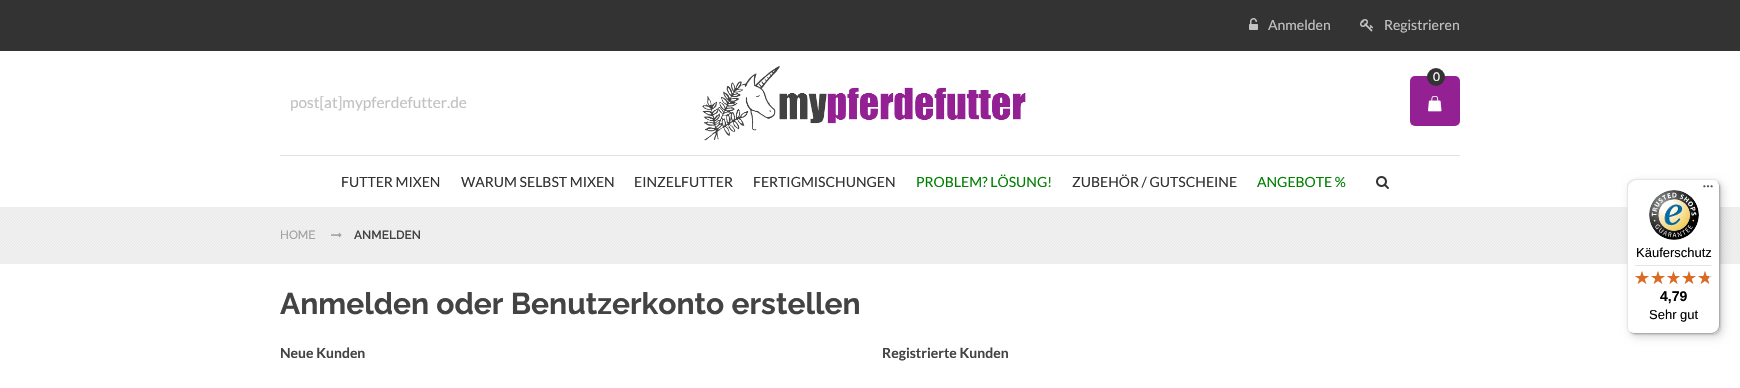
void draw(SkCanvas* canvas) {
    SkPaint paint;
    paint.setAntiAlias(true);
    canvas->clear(0xFFFFFFFF);
    paint.setColor(0xFF333333);
    canvas->drawRect(SkRect::MakeXYWH(0, 0, 1740, 51), paint);
    canvas->drawImageRect(SkImages::DeferredFromEncodedData(SkData::MakeFromFileName("img1.png")), SkRect::MakeXYWH(1249, 18, 9, 12), SkSamplingOptions());
    SkFont font1(fontMgr->matchFamilyStyle("Lato", SkFontStyle::Normal()), 14);
    font1.setSubpixel(true);
    paint.setColor(0xFFC2C2C2);
    canvas->drawString("Anmelden", 1268, 30, font1, paint);
    canvas->drawImageRect(SkImages::DeferredFromEncodedData(SkData::MakeFromFileName("img2.png")), SkRect::MakeXYWH(1360, 19, 14, 13), SkSamplingOptions());
    canvas->drawString("Registrieren", 1384, 30, font1, paint);
    canvas->drawImageRect(SkImages::DeferredFromEncodedData(SkData::MakeFromFileName("img3.png")), SkRect::MakeXYWH(702, 66, 324, 75), SkSamplingOptions());
    paint.setColor(0xFF942193);
    canvas->drawRoundRect(SkRect::MakeXYWH(1410, 76, 50, 50), 5, 5, paint);
    paint.setColor(0xFF333333);
    canvas->drawCircle(1436, 77, 9, paint);
    SkFont font2(fontMgr->matchFamilyStyle("Lato", SkFontStyle::Normal()), 12);
    font2.setSubpixel(true);
    paint.setColor(0xFFFFFFFF);
    canvas->drawString("0", 1433, 81, font2, paint);
    canvas->drawImageRect(SkImages::DeferredFromEncodedData(SkData::MakeFromFileName("img4.png")), SkRect::MakeXYWH(1428, 96, 14, 16), SkSamplingOptions());
    SkFont font3(fontMgr->matchFamilyStyle("Lato", SkFontStyle::Normal()), 15.4f);
    font3.setSubpixel(true);
    paint.setColor(0xFFC2C2C2);
    canvas->drawString("post[at]mypferdefutter.de", 290, 108, font3, paint);
    paint.setColor(0xFFE1E1E1);
    canvas->drawRect(SkRect::MakeXYWH(280, 155, 1180, 1), paint);
    paint.setColor(0xFF333333);
    canvas->drawString("FUTTER MIXEN", 341, 187, font1, paint);
    canvas->drawString("WARUM SELBST MIXEN", 461, 187, font1, paint);
    canvas->drawString("EINZELFUTTER", 634, 187, font1, paint);
    canvas->drawString("FERTIGMISCHUNGEN", 753, 187, font1, paint);
    paint.setColor(0xFF008000);
    canvas->drawString("PROBLEM? LÖSUNG!", 916, 187, font1, paint);
    paint.setColor(0xFF333333);
    canvas->drawString("ZUBEHÖR / GUTSCHEINE", 1072, 187, font1, paint);
    paint.setColor(0xFF008000);
    canvas->drawString("ANGEBOTE %", 1257, 187, font1, paint);
    canvas->drawImageRect(SkImages::DeferredFromEncodedData(SkData::MakeFromFileName("img5.png")), SkRect::MakeXYWH(1376, 176, 13, 13), SkSamplingOptions());
    paint.setColor(0xFFF1F1F1);
    canvas->drawRect(SkRect::MakeXYWH(0, 207, 1740, 57), paint);
    canvas->drawImageRect(SkImages::DeferredFromEncodedData(SkData::MakeFromFileName("img6.png")), SkRect::MakeXYWH(0, 207, 1740, 57), SkSamplingOptions());
    SkFont font4(fontMgr->matchFamilyStyle("Raleway", SkFontStyle(500, SkFontStyle::kNormal_Width, SkFontStyle::kUpright_Slant)), 12);
    font4.setSubpixel(true);
    paint.setColor(0xFFA1A1A1);
    canvas->drawString("HOME", 280, 239, font4, paint);
    canvas->drawImageRect(SkImages::DeferredFromEncodedData(SkData::MakeFromFileName("img7.png")), SkRect::MakeXYWH(331, 232, 11, 6), SkSamplingOptions());
    SkFont font5(fontMgr->matchFamilyStyle("Raleway", SkFontStyle(600, SkFontStyle::kNormal_Width, SkFontStyle::kUpright_Slant)), 12);
    font5.setSubpixel(true);
    paint.setColor(0xFF434343);
    canvas->drawString("ANMELDEN", 354, 239, font5, paint);
    SkFont font6(fontMgr->matchFamilyStyle("Raleway", SkFontStyle::Bold()), 30);
    font6.setSubpixel(true);
    canvas->drawString("Anmelden oder Benutzerkonto erstellen", 280, 314, font6, paint);
    SkFont font7(fontMgr->matchFamilyStyle("Lato", SkFontStyle::Bold()), 14);
    font7.setSubpixel(true);
    canvas->drawString("Neue Kunden", 280, 358, font7, paint);
    canvas->drawString("Registrierte Kunden", 882, 358, font7, paint);
    paint.setColor(0x26000000);
    paint.setMaskFilter(SkMaskFilter::MakeBlur(kNormal_SkBlurStyle, 4));
    canvas->drawRoundRect(SkRect::MakeXYWH(1630, 182, 93, 155), 8, 8, paint);
    paint.setMaskFilter(nullptr);
    paint.setMaskFilter(SkMaskFilter::MakeBlur(kNormal_SkBlurStyle, 1));
    canvas->drawRoundRect(SkRect::MakeXYWH(1628, 180, 93, 155), 8, 8, paint);
    paint.setMaskFilter(nullptr);
    paint.setColor(0xFFFFFFFF);
    canvas->drawRoundRect(SkRect::MakeXYWH(1627, 179, 93, 155), 8, 8, paint);
    paint.setColor(0xFFE5E5E5);
    canvas->drawPath(SkPathBuilder().moveTo(1636, 180).lineTo(1713, 180).cubicTo(1715, 180, 1717, 181, 1719, 183).cubicTo(1717, 181, 1715, 179, 1712, 179).lineTo(1635, 179).cubicTo(1631, 179, 1627, 183, 1627, 187).lineTo(1627, 326).cubicTo(1627, 329, 1629, 331, 1631, 333).cubicTo(1629, 331, 1628, 329, 1628, 327).lineTo(1628, 188).cubicTo(1628, 184, 1632, 180, 1636, 180).close().detach(), paint);
    paint.setColor(0xFFCCCCCC);
    canvas->drawPath(SkPathBuilder().moveTo(1628, 330).cubicTo(1630, 332, 1632, 334, 1635, 334).lineTo(1712, 334).cubicTo(1716, 334, 1720, 330, 1720, 326).lineTo(1720, 187).cubicTo(1720, 184, 1718, 182, 1716, 180).cubicTo(1718, 182, 1719, 184, 1719, 186).lineTo(1719, 325).cubicTo(1719, 329, 1715, 333, 1711, 333).lineTo(1634, 333).cubicTo(1632, 333, 1630, 332, 1628, 330).close().detach(), paint);
    paint.setColor(0x33323232);
    canvas->drawPath(SkPathBuilder().moveTo(1629, 331).cubicTo(1630, 333, 1633, 334, 1635, 334).lineTo(1712, 334).cubicTo(1716, 334, 1720, 330, 1720, 326).lineTo(1720, 187).cubicTo(1720, 185, 1719, 182, 1717, 181).cubicTo(1718, 182, 1719, 184, 1719, 186).lineTo(1719, 325).cubicTo(1719, 330, 1716, 333, 1711, 333).lineTo(1634, 333).cubicTo(1632, 333, 1630, 332, 1629, 331).close().detach(), paint);
    canvas->drawImageRect(SkImages::DeferredFromEncodedData(SkData::MakeFromFileName("img8.png")), SkRect::MakeXYWH(1703, 185, 10, 3), SkSamplingOptions());
    paint.setColor(0x4DFFFFFF);
    canvas->drawPath(SkPathBuilder().moveTo(1712, 334).cubicTo(1716.5f, 334, 1720, 330.5f, 1720, 326).cubicTo(1720, 330, 1716, 334, 1712, 334).close().detach(), paint);
    canvas->drawImageRect(SkImages::DeferredFromEncodedData(SkData::MakeFromFileName("img9.png")), SkRect::MakeXYWH(1649, 190, 50, 50), SkSamplingOptions());
    SkFont font8(fontMgr->matchFamilyStyle("Liberation Sans", SkFontStyle::Normal()), 13);
    font8.setSubpixel(true);
    paint.setColor(0xFF000000);
    canvas->drawString("Käuferschutz", 1636, 257, font8, paint);
    paint.setColor(0xFFE5E5E5);
    canvas->drawRect(SkRect::MakeXYWH(1635, 265, 77, 1), paint);
    canvas->drawImageRect(SkImages::DeferredFromEncodedData(SkData::MakeFromFileName("img10.png")), SkRect::MakeXYWH(1635, 271, 14, 13), SkSamplingOptions());
    canvas->drawImageRect(SkImages::DeferredFromEncodedData(SkData::MakeFromFileName("img10.png")), SkRect::MakeXYWH(1651, 271, 14, 13), SkSamplingOptions());
    canvas->drawImageRect(SkImages::DeferredFromEncodedData(SkData::MakeFromFileName("img11.png")), SkRect::MakeXYWH(1667, 271, 13, 13), SkSamplingOptions());
    canvas->drawImageRect(SkImages::DeferredFromEncodedData(SkData::MakeFromFileName("img10.png")), SkRect::MakeXYWH(1682, 271, 14, 13), SkSamplingOptions());
    canvas->drawImageRect(SkImages::DeferredFromEncodedData(SkData::MakeFromFileName("img10.png")), SkRect::MakeXYWH(1698, 271, 14, 13), SkSamplingOptions());
    canvas->drawImageRect(SkImages::DeferredFromEncodedData(SkData::MakeFromFileName("img12.png")), SkRect::MakeXYWH(1635, 271, 14, 13), SkSamplingOptions());
    canvas->drawImageRect(SkImages::DeferredFromEncodedData(SkData::MakeFromFileName("img12.png")), SkRect::MakeXYWH(1651, 271, 14, 13), SkSamplingOptions());
    canvas->drawImageRect(SkImages::DeferredFromEncodedData(SkData::MakeFromFileName("img13.png")), SkRect::MakeXYWH(1667, 271, 13, 13), SkSamplingOptions());
    canvas->drawImageRect(SkImages::DeferredFromEncodedData(SkData::MakeFromFileName("img12.png")), SkRect::MakeXYWH(1682, 271, 14, 13), SkSamplingOptions());
    canvas->drawImageRect(SkImages::DeferredFromEncodedData(SkData::MakeFromFileName("img14.png")), SkRect::MakeXYWH(1698, 271, 11, 13), SkSamplingOptions());
    SkFont font9(fontMgr->matchFamilyStyle("Liberation Sans", SkFontStyle::Bold()), 14);
    font9.setSubpixel(true);
    paint.setColor(0xFF000000);
    canvas->drawString("4,79", 1660, 301, font9, paint);
    canvas->drawString("Sehr gut", 1649, 319, font8, paint);
}
